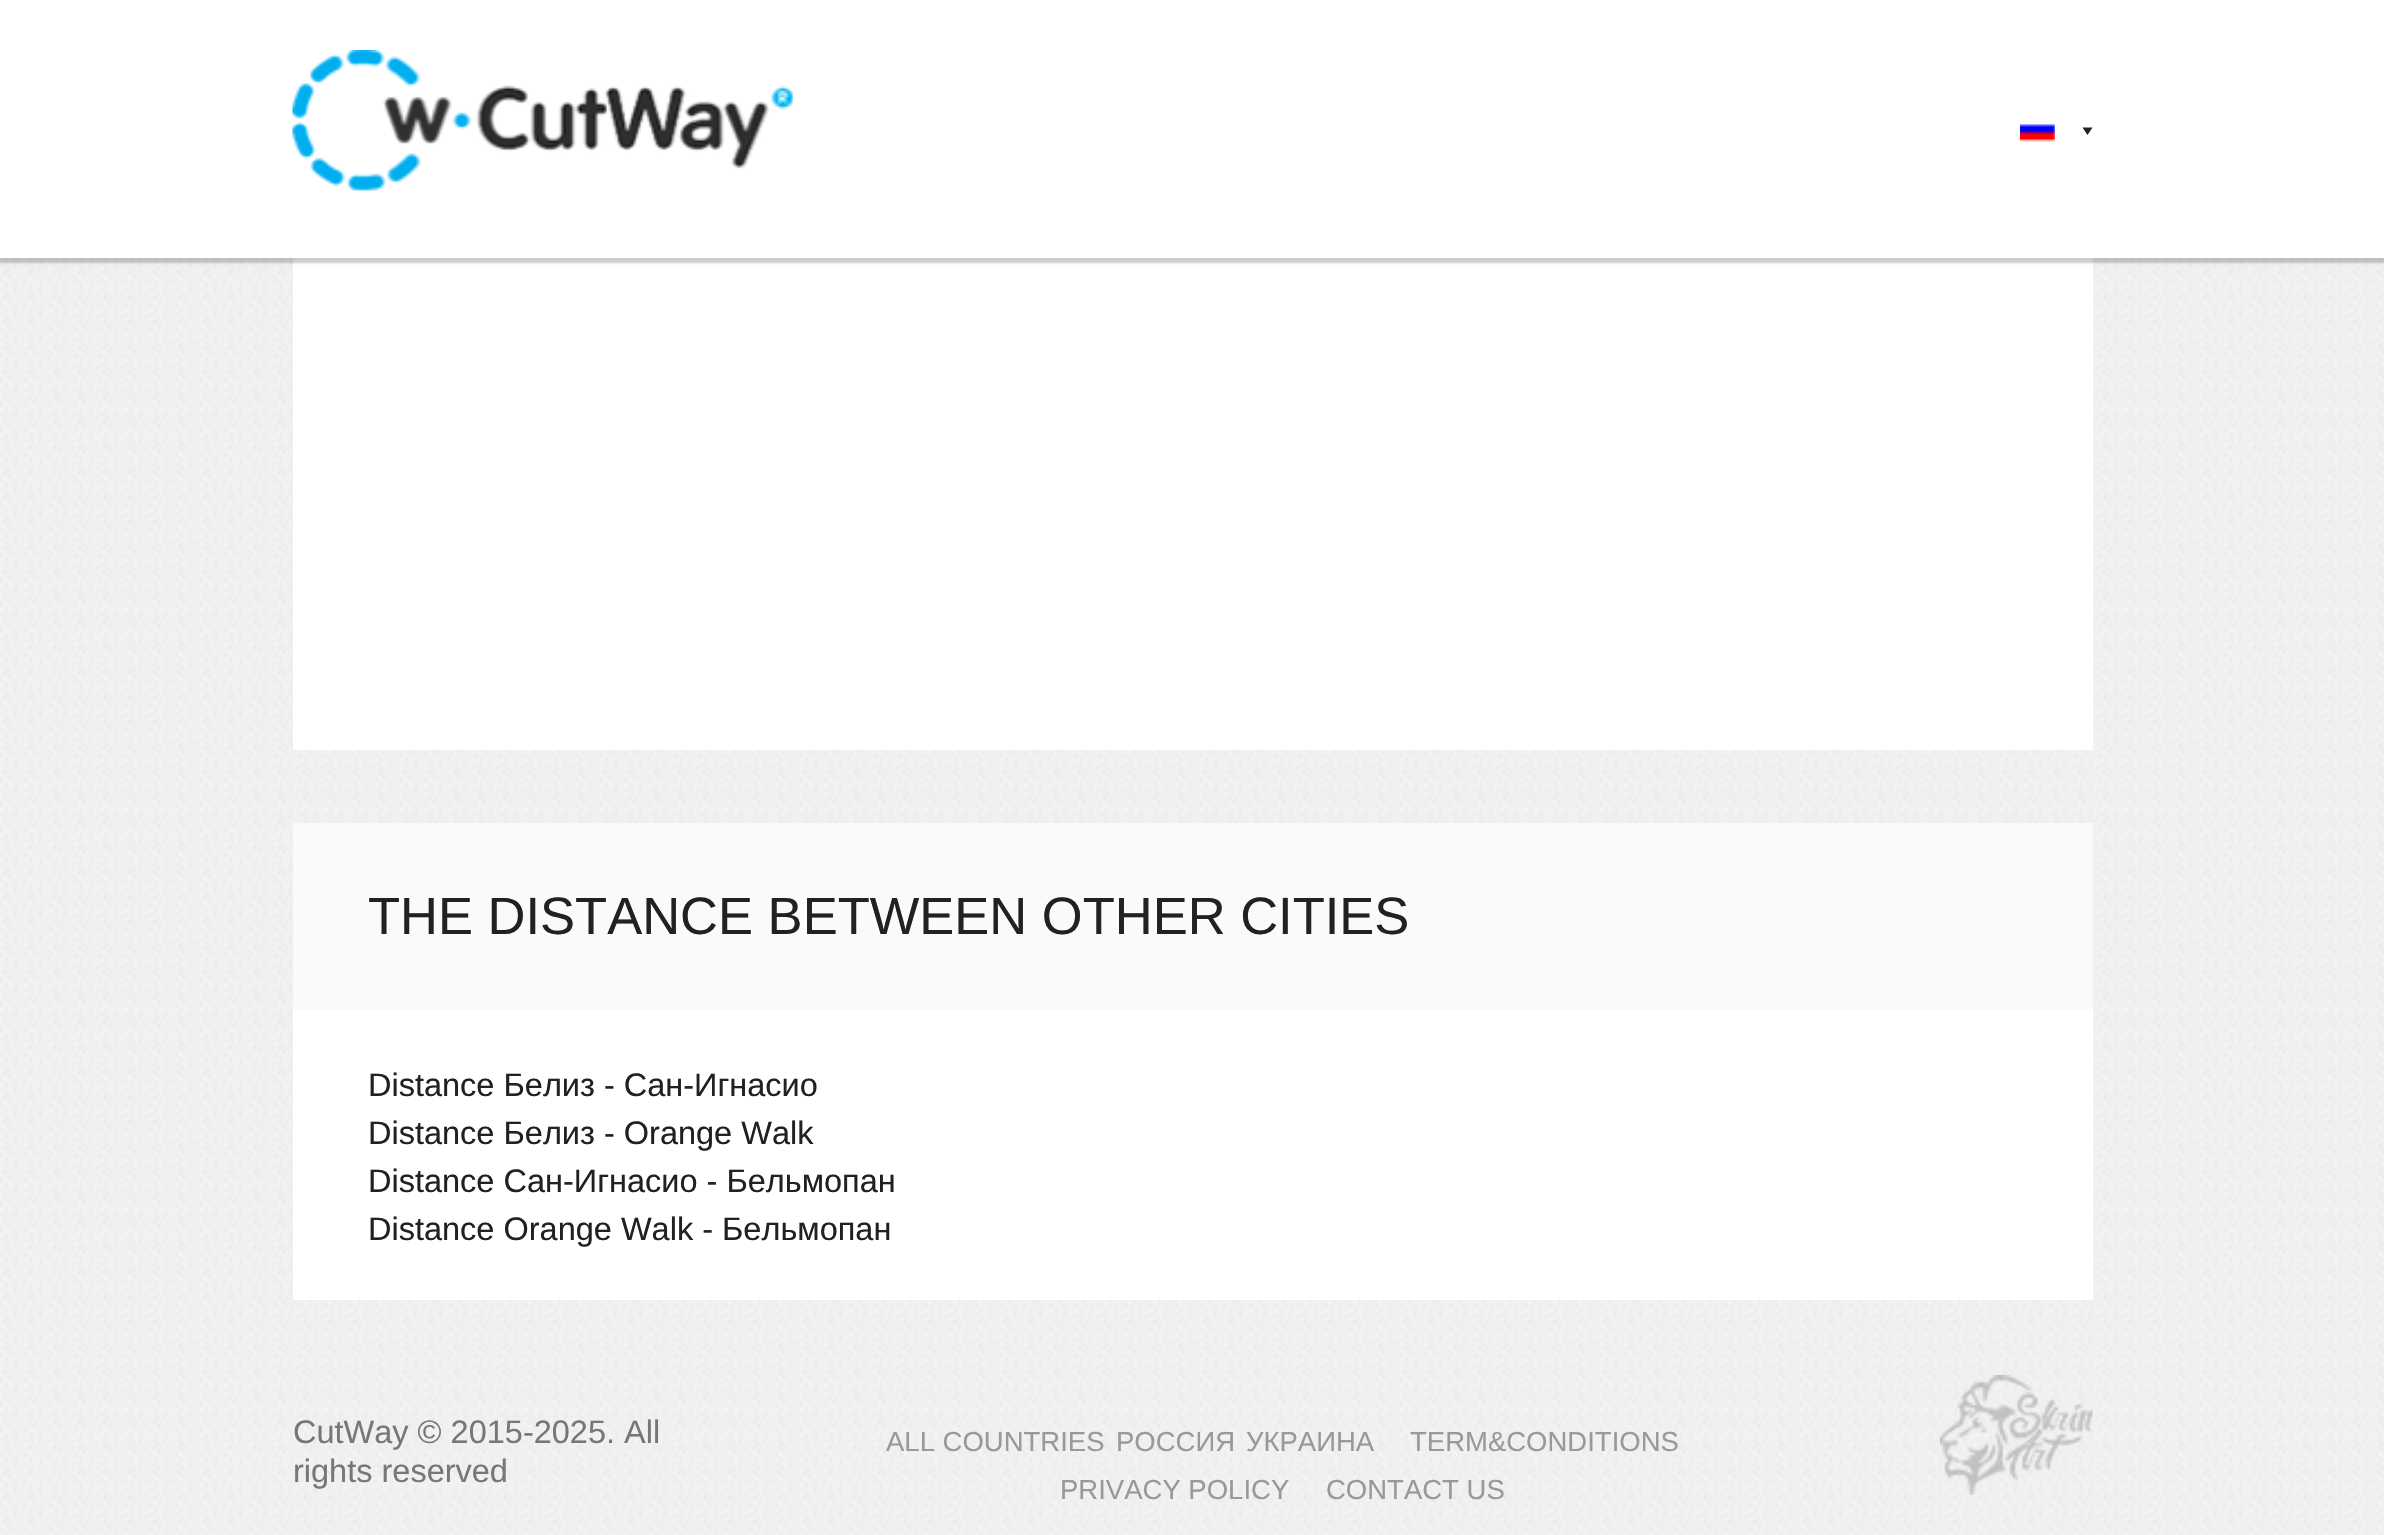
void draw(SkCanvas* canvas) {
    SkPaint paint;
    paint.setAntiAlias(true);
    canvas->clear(0xFFFFFFFF);
    canvas->drawImageRect(SkImages::DeferredFromEncodedData(SkData::MakeFromFileName("img1.png")), SkRect::MakeXYWH(0, 258, 2384, 1277), SkSamplingOptions());
    paint.setColor(0xFFFFFFFF);
    canvas->drawRect(SkRect::MakeXYWH(293, 258, 1800, 492), paint);
    paint.setColor(0x33000000);
    paint.setMaskFilter(SkMaskFilter::MakeBlur(kNormal_SkBlurStyle, 1));
    canvas->drawRect(SkRect::MakeXYWH(-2, 0, 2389, 263), paint);
    paint.setMaskFilter(nullptr);
    paint.setColor(0xFFFFFFFF);
    canvas->drawRect(SkRect::MakeXYWH(0, 0, 2384, 258), paint);
    canvas->drawImageRect(SkImages::DeferredFromEncodedData(SkData::MakeFromFileName("img2.png")), SkRect::MakeXYWH(292, 50, 501, 141), SkSamplingOptions());
    canvas->drawImageRect(SkImages::DeferredFromEncodedData(SkData::MakeFromFileName("img3.png")), SkRect::MakeXYWH(2020, 124, 35, 18), SkSamplingOptions());
    paint.setColor(0xFF212121);
    canvas->drawPath(SkPathBuilder().moveTo(2082.5f, 127.5f).lineTo(2092.5f, 127.5f).lineTo(2087.5f, 135).close().detach(), paint);
    paint.setColor(0xFFFFFFFF);
    canvas->drawRect(SkRect::MakeXYWH(293, 1010, 1800, 290), paint);
    paint.setColor(0xFFFAFAFA);
    canvas->drawRect(SkRect::MakeXYWH(293, 823, 1800, 187), paint);
    SkFont font1(fontMgr->matchFamilyStyle("Liberation Sans", SkFontStyle::Normal()), 52.5f);
    font1.setSubpixel(true);
    paint.setColor(0xFF212121);
    canvas->drawString("THE DISTANCE BETWEEN OTHER CITIES", 368, 934, font1, paint);
    SkFont font2(fontMgr->matchFamilyStyle("Liberation Sans", SkFontStyle::Normal()), 32.5f);
    font2.setSubpixel(true);
    canvas->drawString("Distance Белиз - Сан-Игнасио", 368, 1096, font2, paint);
    canvas->drawString("Distance Белиз - Orange Walk", 368, 1144, font2, paint);
    canvas->drawString("Distance Сан-Игнасио - Бельмопан", 368, 1192, font2, paint);
    canvas->drawString("Distance Orange Walk - Бельмопан", 368, 1240, font2, paint);
    paint.setColor(0xFF777777);
    canvas->drawString("CutWay © 2015-2025. All", 293, 1443, font2, paint);
    canvas->drawString("rights reserved", 293, 1482, font2, paint);
    SkFont font3(fontMgr->matchFamilyStyle("Liberation Sans", SkFontStyle::Normal()), 27.5f);
    font3.setSubpixel(true);
    paint.setColor(0xFF999999);
    canvas->drawString("ALL COUNTRIES", 886, 1451, font3, paint);
    canvas->drawString("РОССИЯ", 1116, 1451, font3, paint);
    canvas->drawString("УКРАИНА", 1246, 1451, font3, paint);
    canvas->drawString("TERM&CONDITIONS", 1410, 1451, font3, paint);
    canvas->drawString("PRIVACY POLICY", 1060, 1499, font3, paint);
    canvas->drawString("CONTACT US", 1326, 1499, font3, paint);
    canvas->drawImageRect(SkImages::DeferredFromEncodedData(SkData::MakeFromFileName("img4.png")), SkRect::MakeXYWH(1940, 1375, 153, 120), SkSamplingOptions());
}
